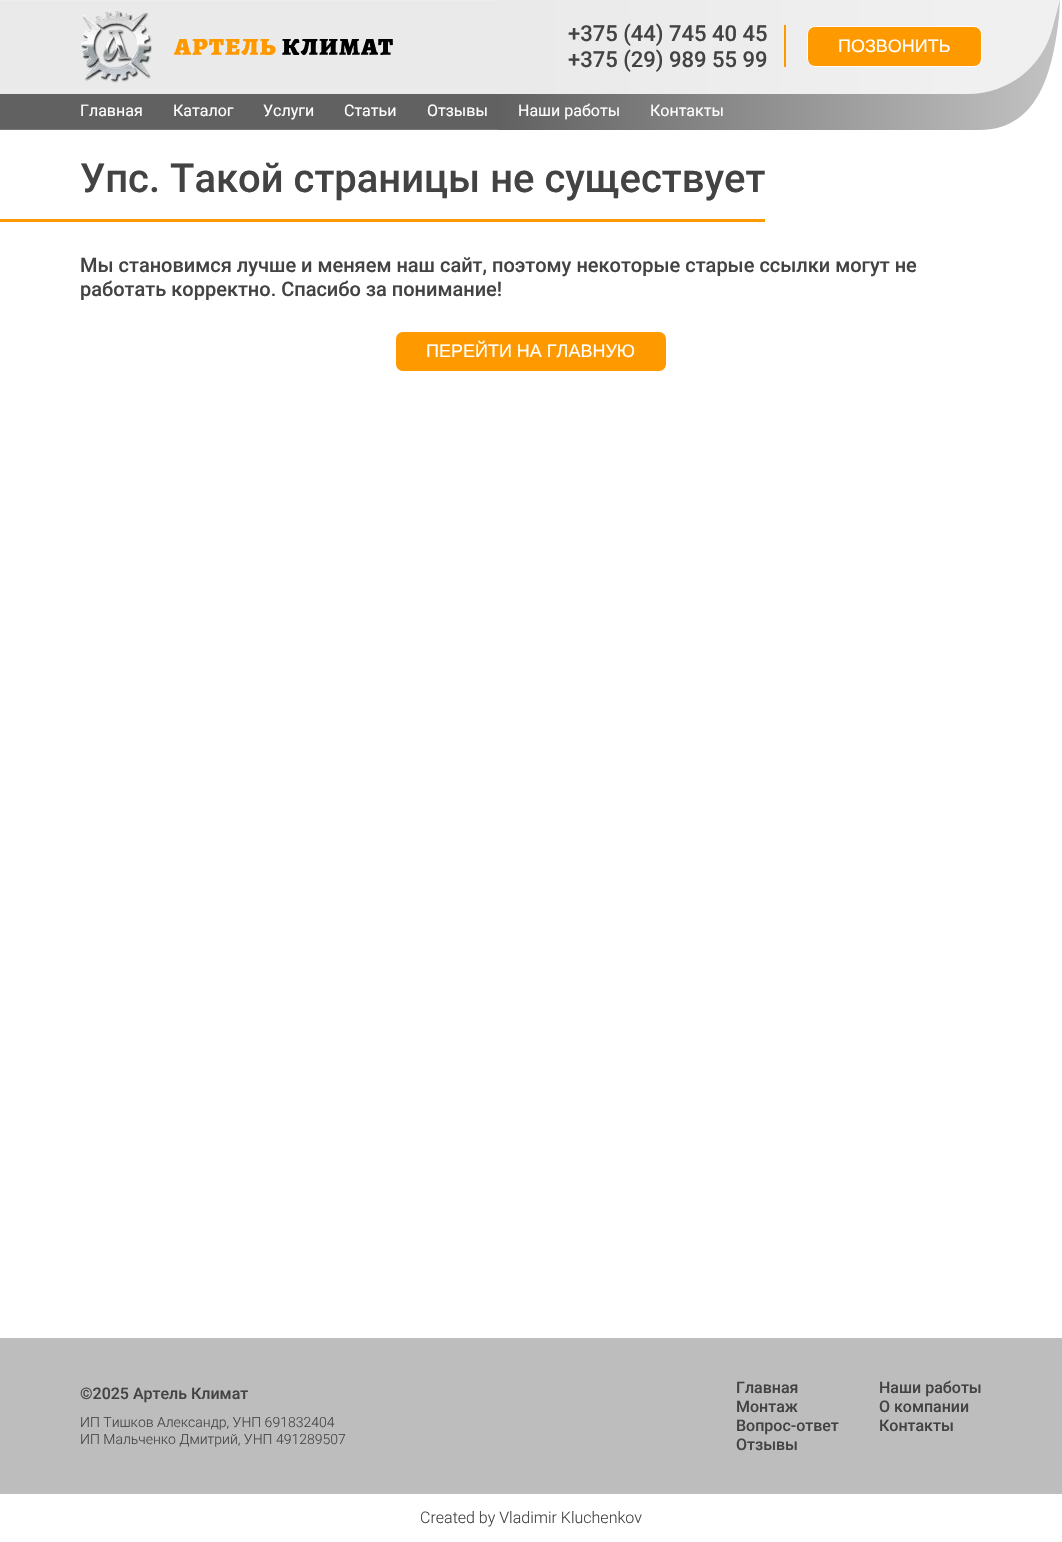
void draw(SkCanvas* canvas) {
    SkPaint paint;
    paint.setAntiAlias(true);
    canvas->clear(0xFFFFFFFF);
    {
        const SkColor colors[] = {0xFF616161, 0xFFC3C3C3};
        const float stops[] = {0, 1};
        const SkPoint ends[] = {{498, 65}, {1060, 65}};
        paint.setShader(SkGradientShader::MakeLinear(ends, colors, stops, 2, SkTileMode::kClamp));
        paint.setAlpha(255);
    }
    canvas->drawPath(SkPathBuilder().moveTo(498, 0).lineTo(498, 130).lineTo(979, 130).cubicTo(1040, 130, 1053, 68, 1059, 17).lineTo(1060, 0).close().detach(), paint);
    {
        const SkColor colors[] = {0xFFD9D9D9, 0xFFF0F0F0};
        const float stops[] = {0, 1};
        const SkPoint ends[] = {{-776, 47}, {972, 47}};
        paint.setShader(SkGradientShader::MakeLinear(ends, colors, stops, 2, SkTileMode::kClamp));
        paint.setAlpha(255);
    }
    canvas->drawPath(SkPathBuilder().moveTo(498, 0).lineTo(498, 94).lineTo(968, 94).cubicTo(1008, 94, 1042, 67, 1052, 30).lineTo(1060, 0).close().detach(), paint);
    canvas->drawImageRect(SkImages::DeferredFromEncodedData(SkData::MakeFromFileName("img1.png")), SkRect::MakeXYWH(0, 0, 498, 130), SkSamplingOptions());
    canvas->drawImageRect(SkImages::DeferredFromEncodedData(SkData::MakeFromFileName("img2.png")), SkRect::MakeXYWH(81, 10, 72, 73), SkSamplingOptions());
    canvas->drawImageRect(SkImages::DeferredFromEncodedData(SkData::MakeFromFileName("img3.png")), SkRect::MakeXYWH(174, 39, 219, 16), SkSamplingOptions());
    SkFont font1(fontMgr->matchFamilyStyle("Roboto", SkFontStyle(500, SkFontStyle::kNormal_Width, SkFontStyle::kUpright_Slant)), 22);
    font1.setSubpixel(true);
    paint.setShader(nullptr);
    paint.setColor(0xFF434343);
    canvas->drawString("+375 (44) 745 40 45", 568, 41, font1, paint);
    paint.setColor(0xFFFF9900);
    canvas->drawRect(SkRect::MakeXYWH(784, 25, 2, 42), paint);
    paint.setColor(0xFF434343);
    canvas->drawString("+375 (29) 989 55 99", 568, 67, font1, paint);
    paint.setColor(0xFFFF9900);
    canvas->drawRoundRect(SkRect::MakeXYWH(807.5f, 26.5f, 174, 40), 7.5f, 7.5f, paint);
    paint.setStyle(SkPaint::kStroke_Style);
    paint.setStrokeWidth(1);
    paint.setColor(0xFFFFFFFF);
    canvas->drawRoundRect(SkRect::MakeXYWH(807.5f, 26.5f, 174, 40), 7.5f, 7.5f, paint);
    SkFont font2(fontMgr->matchFamilyStyle("Liberation Sans", SkFontStyle::Normal()), 18);
    font2.setSubpixel(true);
    paint.setStyle(SkPaint::kFill_Style);
    canvas->drawString("ПОЗВОНИТЬ", 838, 52, font2, paint);
    SkFont font3(fontMgr->matchFamilyStyle("Roboto", SkFontStyle::Normal()), 16);
    font3.setSubpixel(true);
    canvas->drawString("Главная", 80, 116, font3, paint);
    canvas->drawString("Каталог", 173, 116, font3, paint);
    canvas->drawString("Услуги", 263, 116, font3, paint);
    canvas->drawString("Cтатьи", 344, 116, font3, paint);
    canvas->drawString("Отзывы", 427, 116, font3, paint);
    canvas->drawString("Наши работы", 518, 116, font3, paint);
    canvas->drawString("Контакты", 650, 116, font3, paint);
    SkFont font4(fontMgr->matchFamilyStyle("Roboto", SkFontStyle(500, SkFontStyle::kNormal_Width, SkFontStyle::kUpright_Slant)), 40);
    font4.setSubpixel(true);
    paint.setColor(0xFF434343);
    canvas->drawString("Упс. Такой страницы не существует", 80, 192, font4, paint);
    paint.setColor(0xFFFF9900);
    canvas->drawRect(SkRect::MakeXYWH(0, 219, 765, 3), paint);
    SkFont font5(fontMgr->matchFamilyStyle("Roboto", SkFontStyle(500, SkFontStyle::kNormal_Width, SkFontStyle::kUpright_Slant)), 20);
    font5.setSubpixel(true);
    paint.setColor(0xFF434343);
    canvas->drawString("Мы становимся лучше и меняем наш сайт, поэтому некоторые старые ссылки могут не", 80, 272, font5, paint);
    canvas->drawString("работать корректно. Спасибо за понимание!", 80, 296, font5, paint);
    paint.setColor(0xFFFF9900);
    canvas->drawRoundRect(SkRect::MakeXYWH(395.5f, 331.5f, 271, 40), 7.5f, 7.5f, paint);
    paint.setStyle(SkPaint::kStroke_Style);
    paint.setColor(0xFFFFFFFF);
    canvas->drawRoundRect(SkRect::MakeXYWH(395.5f, 331.5f, 271, 40), 7.5f, 7.5f, paint);
    paint.setStyle(SkPaint::kFill_Style);
    canvas->drawString("ПЕРЕЙТИ НА ГЛАВНУЮ", 426, 357, font2, paint);
    paint.setColor(0xFFBDBDBD);
    canvas->drawRect(SkRect::MakeXYWH(0, 1338, 1062, 156), paint);
    SkFont font6(fontMgr->matchFamilyStyle("Roboto", SkFontStyle(500, SkFontStyle::kNormal_Width, SkFontStyle::kUpright_Slant)), 16);
    font6.setSubpixel(true);
    paint.setColor(0xFF434343);
    canvas->drawString("©2025 Артель Климат", 80, 1399, font6, paint);
    SkFont font7(fontMgr->matchFamilyStyle("Roboto", SkFontStyle(300, SkFontStyle::kNormal_Width, SkFontStyle::kUpright_Slant)), 14);
    font7.setSubpixel(true);
    canvas->drawString("ИП Тишков Александр, УНП 691832404", 80, 1427, font7, paint);
    canvas->drawString("ИП Мальченко Дмитрий, УНП 491289507", 80, 1444, font7, paint);
    canvas->drawString("Главная", 736, 1393, font6, paint);
    canvas->drawString("Наши работы", 879, 1393, font6, paint);
    canvas->drawString("Монтаж", 736, 1412, font6, paint);
    canvas->drawString("О компании", 879, 1412, font6, paint);
    canvas->drawString("Вопрос-ответ", 736, 1431, font6, paint);
    canvas->drawString("Контакты", 879, 1431, font6, paint);
    canvas->drawString("Отзывы", 736, 1450, font6, paint);
    SkFont font8(fontMgr->matchFamilyStyle("Roboto", SkFontStyle(300, SkFontStyle::kNormal_Width, SkFontStyle::kUpright_Slant)), 16);
    font8.setSubpixel(true);
    canvas->drawString("Created by Vladimir Kluchenkov", 420, 1523, font8, paint);
}
